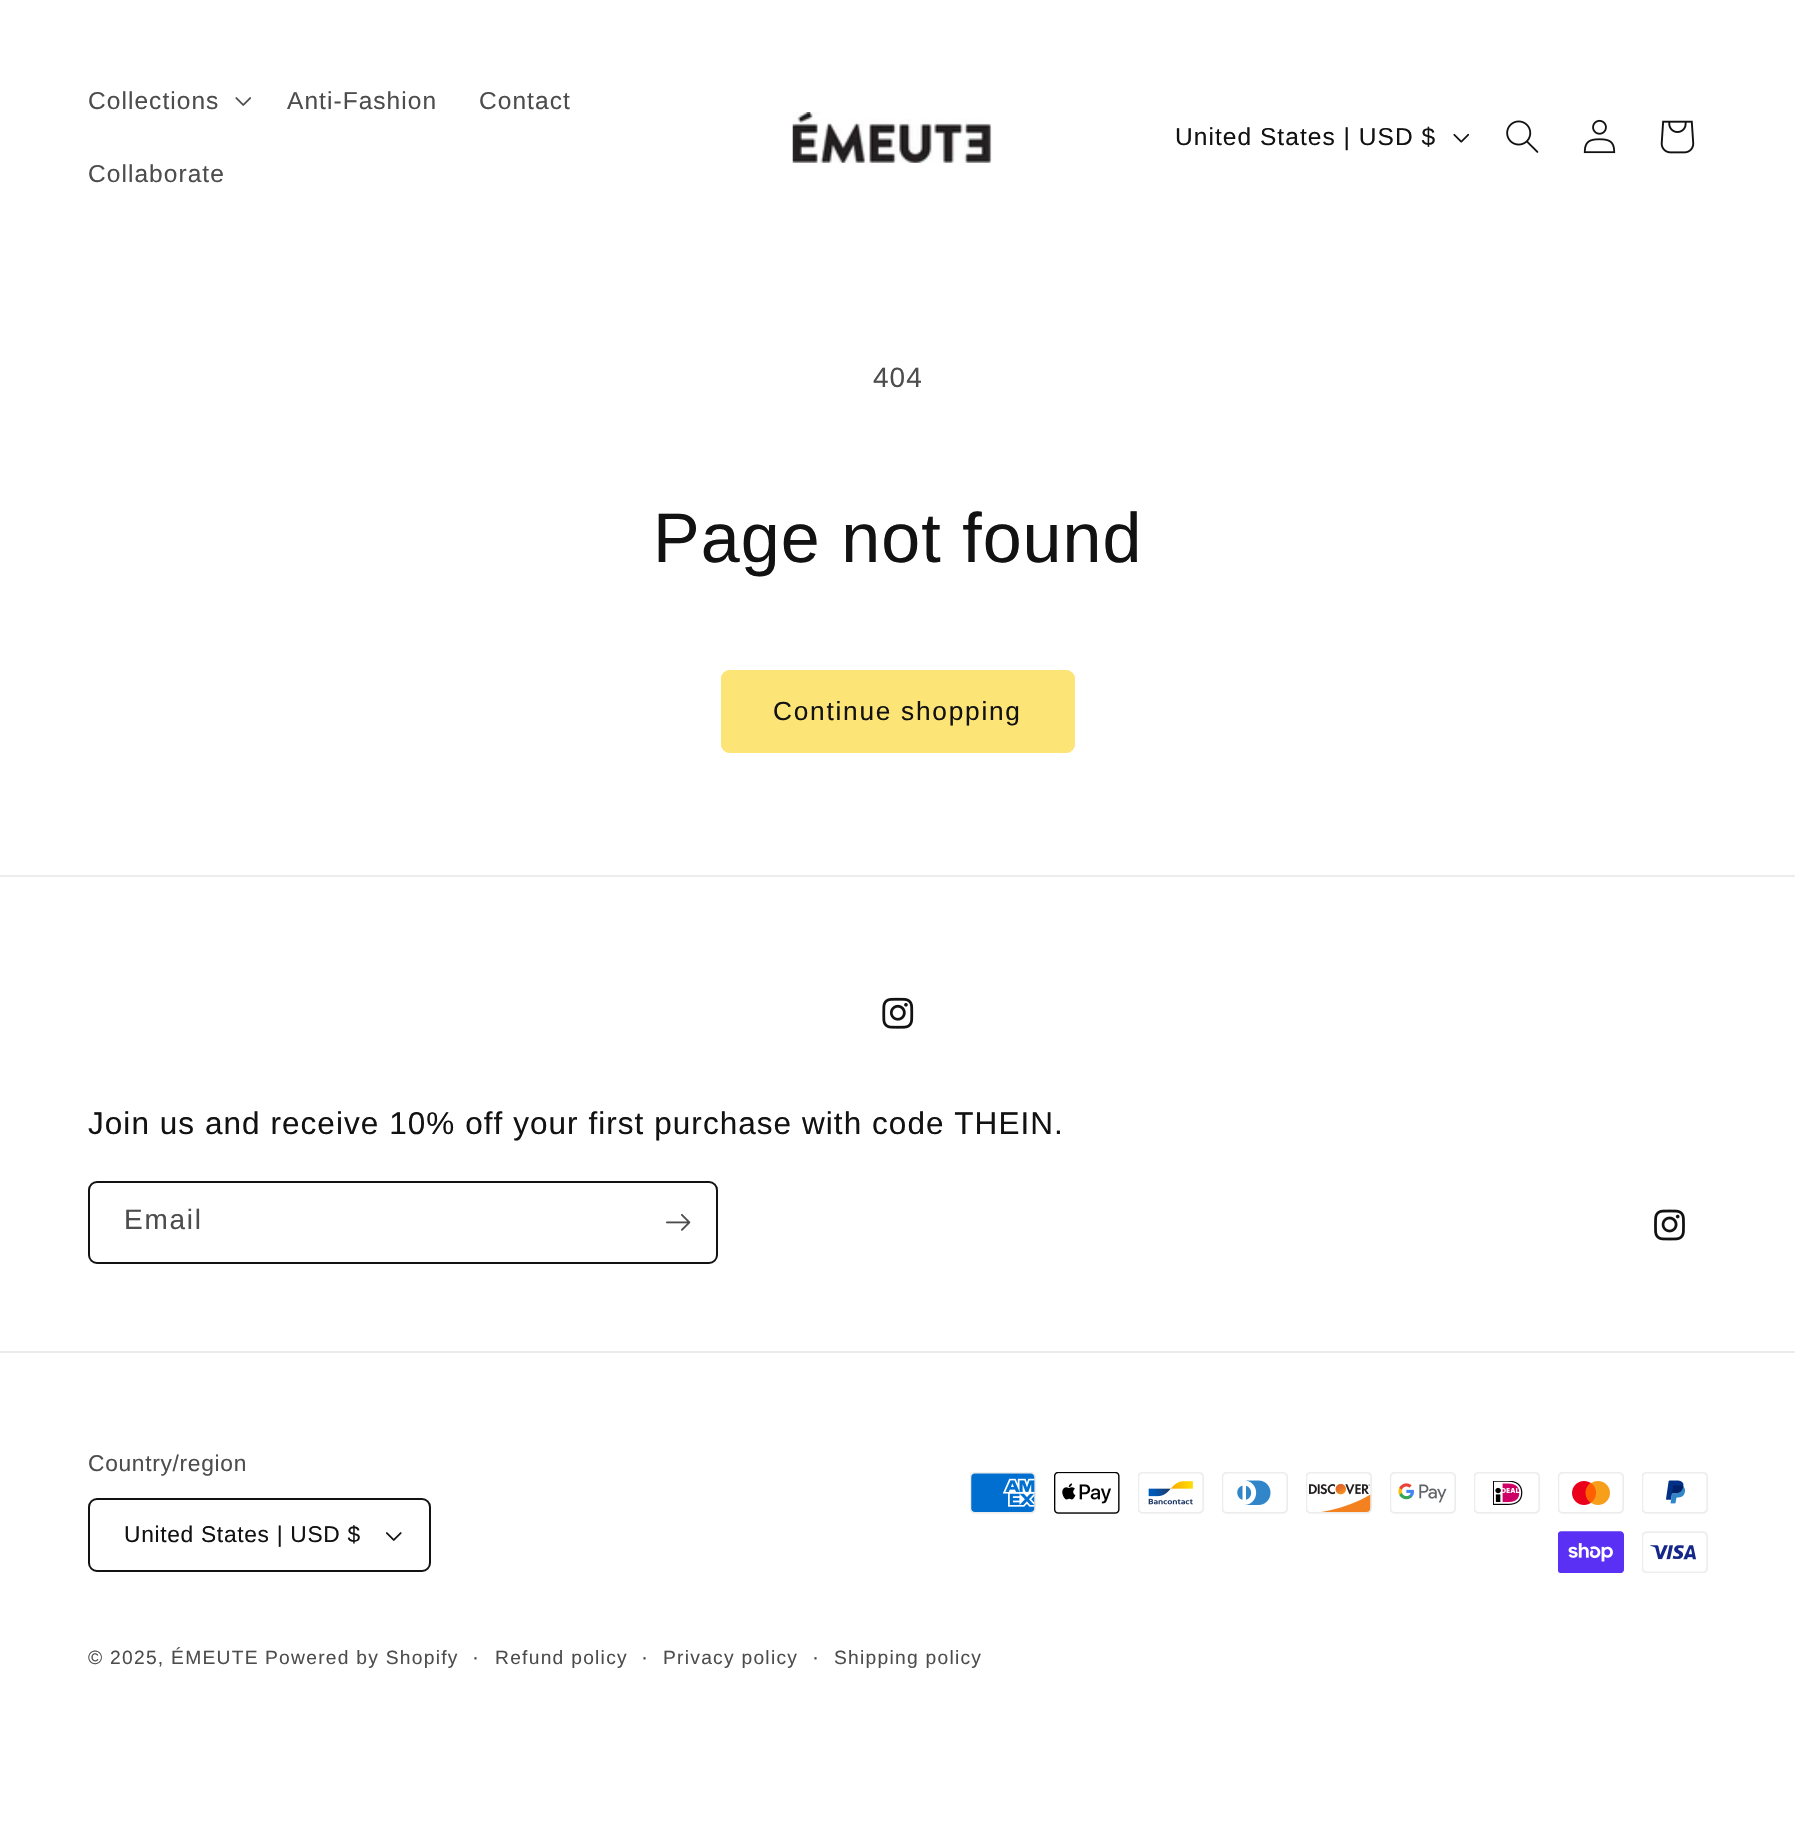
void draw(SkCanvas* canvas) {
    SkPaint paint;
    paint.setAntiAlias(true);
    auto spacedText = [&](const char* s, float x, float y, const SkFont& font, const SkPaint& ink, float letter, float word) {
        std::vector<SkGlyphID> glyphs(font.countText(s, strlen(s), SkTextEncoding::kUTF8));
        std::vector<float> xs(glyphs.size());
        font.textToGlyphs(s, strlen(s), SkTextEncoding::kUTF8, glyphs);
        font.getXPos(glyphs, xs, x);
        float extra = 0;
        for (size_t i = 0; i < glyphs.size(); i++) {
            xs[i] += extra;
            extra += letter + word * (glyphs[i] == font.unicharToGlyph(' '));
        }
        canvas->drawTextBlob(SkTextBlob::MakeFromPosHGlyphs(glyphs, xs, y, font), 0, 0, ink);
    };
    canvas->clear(0xFFFFFFFF);
    SkFont font1(fontMgr->matchFamilyStyle("Liberation Sans", SkFontStyle::Normal()), 24.5f);
    font1.setSubpixel(true);
    paint.setColor(0xFF4D4D4D);
    spacedText("Collections", 88, 109, font1, paint, 1.05f, 0);
    canvas->drawImageRect(SkImages::DeferredFromEncodedData(SkData::MakeFromFileName("img1.png")), SkRect::MakeXYWH(235, 97, 16, 9), SkSamplingOptions());
    spacedText("Anti-Fashion", 287, 109, font1, paint, 1.05f, 0);
    spacedText("Contact", 479, 109, font1, paint, 1.05f, 0);
    spacedText("Collaborate", 88, 182, font1, paint, 1.05f, 0);
    canvas->drawImageRect(SkImages::DeferredFromEncodedData(SkData::MakeFromFileName("img2.png")), SkRect::MakeXYWH(792, 112, 200, 51), SkSamplingOptions());
    paint.setColor(0xFF121212);
    spacedText("United States | USD $", 1175, 145, font1, paint, 1.05f, 0);
    canvas->drawImageRect(SkImages::DeferredFromEncodedData(SkData::MakeFromFileName("img3.png")), SkRect::MakeXYWH(1453, 133, 17, 10), SkSamplingOptions());
    canvas->drawImageRect(SkImages::DeferredFromEncodedData(SkData::MakeFromFileName("img4.png")), SkRect::MakeXYWH(1506, 120, 33, 33), SkSamplingOptions());
    canvas->drawImageRect(SkImages::DeferredFromEncodedData(SkData::MakeFromFileName("img5.png")), SkRect::MakeXYWH(1583, 119, 33, 35), SkSamplingOptions());
    canvas->drawImageRect(SkImages::DeferredFromEncodedData(SkData::MakeFromFileName("img6.png")), SkRect::MakeXYWH(1660, 120, 35, 34), SkSamplingOptions());
    SkFont font2(fontMgr->matchFamilyStyle("Liberation Sans", SkFontStyle::Normal()), 28);
    font2.setSubpixel(true);
    paint.setColor(0xFF4D4D4D);
    spacedText("404", 873, 387, font2, paint, 1.05f, 0);
    SkFont font3(fontMgr->matchFamilyStyle("Liberation Sans", SkFontStyle::Normal()), 70);
    font3.setSubpixel(true);
    paint.setColor(0xFF121212);
    spacedText("Page not found", 653, 562, font3, paint, 1.05f, 0);
    paint.setColor(0xFFFCE477);
    canvas->drawRoundRect(SkRect::MakeXYWH(721, 670, 354, 83), 9, 9, paint);
    paint.setStyle(SkPaint::kStroke_Style);
    paint.setStrokeWidth(2);
    canvas->drawRoundRect(SkRect::MakeXYWH(722, 671, 352, 81), 8, 8, paint);
    SkFont font4(fontMgr->matchFamilyStyle("Liberation Sans", SkFontStyle::Normal()), 26.25f);
    font4.setSubpixel(true);
    paint.setStyle(SkPaint::kFill_Style);
    paint.setColor(0xFF121212);
    spacedText("Continue shopping", 773, 720, font4, paint, 1.75f, 0);
    paint.setColor(0xFFECECEC);
    canvas->drawRect(SkRect::MakeXYWH(0, 875, 1795, 2), paint);
    canvas->drawImageRect(SkImages::DeferredFromEncodedData(SkData::MakeFromFileName("img7.png")), SkRect::MakeXYWH(882, 997, 32, 32), SkSamplingOptions());
    SkFont font5(fontMgr->matchFamilyStyle("Liberation Sans", SkFontStyle::Normal()), 31.5f);
    font5.setSubpixel(true);
    paint.setColor(0xFF121212);
    spacedText("Join us and receive 10% off your first purchase with code THEIN.", 88, 1134, font5, paint, 1.05f, 0);
    paint.setStyle(SkPaint::kStroke_Style);
    canvas->drawRoundRect(SkRect::MakeXYWH(89, 1182, 628, 81), 8, 8, paint);
    paint.setStyle(SkPaint::kFill_Style);
    paint.setColor(0xFF4D4D4D);
    spacedText("Email", 124, 1229, font2, paint, 1.75f, 0);
    canvas->drawImageRect(SkImages::DeferredFromEncodedData(SkData::MakeFromFileName("img8.png")), SkRect::MakeXYWH(666, 1214, 25, 17), SkSamplingOptions());
    canvas->drawImageRect(SkImages::DeferredFromEncodedData(SkData::MakeFromFileName("img9.png")), SkRect::MakeXYWH(1654, 1209, 31, 32), SkSamplingOptions());
    paint.setColor(0xFFECECEC);
    canvas->drawRect(SkRect::MakeXYWH(0, 1351, 1795, 2), paint);
    SkFont font6(fontMgr->matchFamilyStyle("Liberation Sans", SkFontStyle::Normal()), 22.75f);
    font6.setSubpixel(true);
    paint.setColor(0xFF4D4D4D);
    spacedText("Country/region", 88, 1471, font6, paint, 0.7f, 0);
    canvas->drawImageRect(SkImages::DeferredFromEncodedData(SkData::MakeFromFileName("img10.png")), SkRect::MakeXYWH(386, 1532, 16, 9), SkSamplingOptions());
    paint.setStyle(SkPaint::kStroke_Style);
    paint.setColor(0xFF121212);
    canvas->drawRoundRect(SkRect::MakeXYWH(89, 1499, 341, 72), 8, 8, paint);
    paint.setStyle(SkPaint::kFill_Style);
    spacedText("United States | USD $", 124, 1542, font6, paint, 0.7f, 0);
    canvas->drawImageRect(SkImages::DeferredFromEncodedData(SkData::MakeFromFileName("img11.png")), SkRect::MakeXYWH(970, 1472, 66, 42), SkSamplingOptions());
    canvas->drawImageRect(SkImages::DeferredFromEncodedData(SkData::MakeFromFileName("img12.png")), SkRect::MakeXYWH(1054, 1472, 66, 42), SkSamplingOptions());
    canvas->drawImageRect(SkImages::DeferredFromEncodedData(SkData::MakeFromFileName("img13.png")), SkRect::MakeXYWH(1138, 1472, 66, 42), SkSamplingOptions());
    canvas->drawImageRect(SkImages::DeferredFromEncodedData(SkData::MakeFromFileName("img14.png")), SkRect::MakeXYWH(1222, 1472, 66, 42), SkSamplingOptions());
    canvas->drawImageRect(SkImages::DeferredFromEncodedData(SkData::MakeFromFileName("img15.png")), SkRect::MakeXYWH(1306, 1472, 66, 42), SkSamplingOptions());
    canvas->drawImageRect(SkImages::DeferredFromEncodedData(SkData::MakeFromFileName("img16.png")), SkRect::MakeXYWH(1390, 1472, 66, 42), SkSamplingOptions());
    canvas->drawImageRect(SkImages::DeferredFromEncodedData(SkData::MakeFromFileName("img17.png")), SkRect::MakeXYWH(1474, 1472, 66, 42), SkSamplingOptions());
    canvas->drawImageRect(SkImages::DeferredFromEncodedData(SkData::MakeFromFileName("img18.png")), SkRect::MakeXYWH(1558, 1472, 66, 42), SkSamplingOptions());
    canvas->drawImageRect(SkImages::DeferredFromEncodedData(SkData::MakeFromFileName("img19.png")), SkRect::MakeXYWH(1642, 1472, 66, 42), SkSamplingOptions());
    canvas->drawImageRect(SkImages::DeferredFromEncodedData(SkData::MakeFromFileName("img20.png")), SkRect::MakeXYWH(1558, 1531, 66, 42), SkSamplingOptions());
    canvas->drawImageRect(SkImages::DeferredFromEncodedData(SkData::MakeFromFileName("img21.png")), SkRect::MakeXYWH(1642, 1531, 66, 42), SkSamplingOptions());
    SkFont font7(fontMgr->matchFamilyStyle("Liberation Sans", SkFontStyle::Normal()), 19.25f);
    font7.setSubpixel(true);
    paint.setColor(0xFF4D4D4D);
    spacedText("© 2025, ÉMEUTE", 88, 1664, font7, paint, 1.25f, 0);
    spacedText("Powered by Shopify", 265, 1664, font7, paint, 1.25f, 0);
    SkFont font8(fontMgr->matchFamilyStyle("Liberation Sans", SkFontStyle::Normal()), 21);
    font8.setSubpixel(true);
    spacedText("·", 472, 1664, font8, paint, 1.25f, 0);
    spacedText("Refund policy", 495, 1664, font7, paint, 1.25f, 0);
    spacedText("·", 641, 1664, font8, paint, 1.25f, 0);
    spacedText("Privacy policy", 663, 1664, font7, paint, 1.25f, 0);
    spacedText("·", 812, 1664, font8, paint, 1.25f, 0);
    spacedText("Shipping policy", 834, 1664, font7, paint, 1.25f, 0);
}
